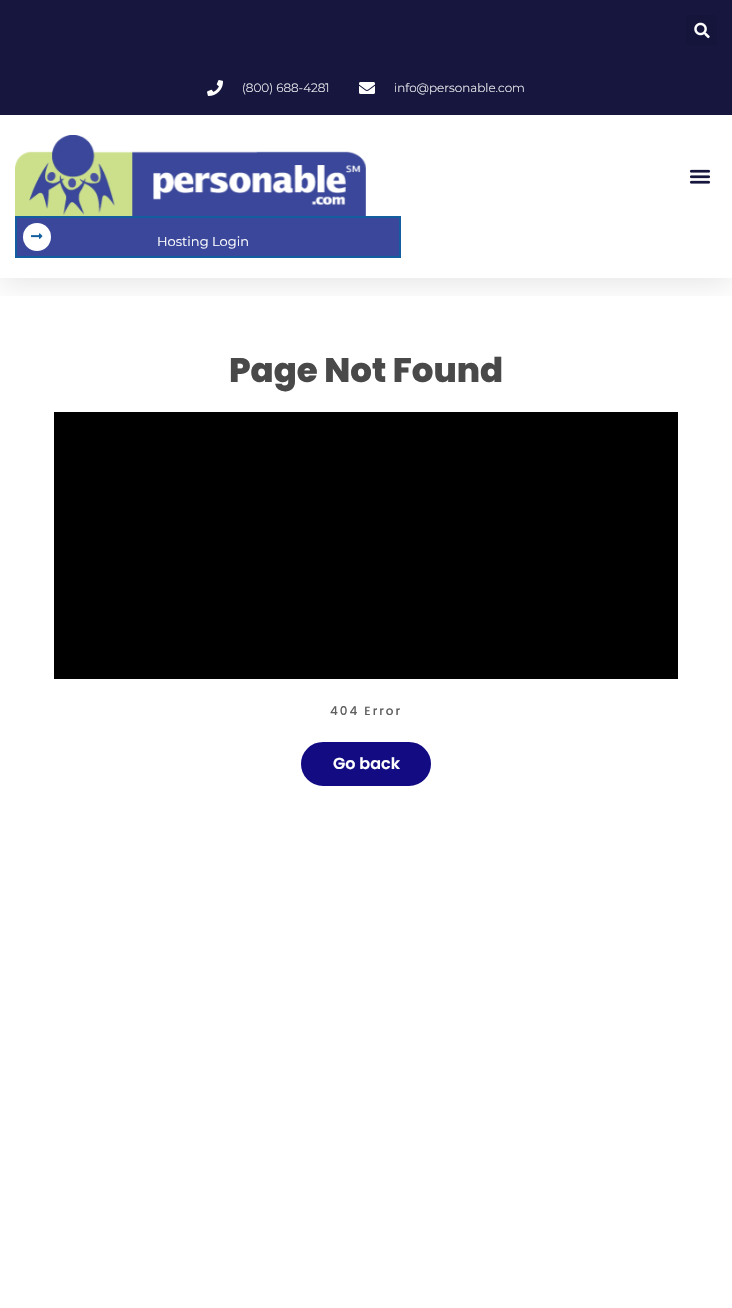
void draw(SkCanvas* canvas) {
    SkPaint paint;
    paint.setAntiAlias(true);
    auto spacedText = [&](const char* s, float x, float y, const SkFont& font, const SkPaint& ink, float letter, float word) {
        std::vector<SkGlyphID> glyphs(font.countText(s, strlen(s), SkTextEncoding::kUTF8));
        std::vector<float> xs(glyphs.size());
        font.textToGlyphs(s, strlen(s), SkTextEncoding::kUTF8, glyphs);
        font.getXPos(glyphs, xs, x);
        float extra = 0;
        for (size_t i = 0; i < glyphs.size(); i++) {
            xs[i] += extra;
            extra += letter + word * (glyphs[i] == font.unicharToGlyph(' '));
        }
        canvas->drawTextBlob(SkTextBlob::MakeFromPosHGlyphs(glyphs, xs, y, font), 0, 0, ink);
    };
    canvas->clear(0xFFFFFFFF);
    canvas->save();
    canvas->clipRect(SkRect::MakeXYWH(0, 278, 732, 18));
    paint.setColor(0x1A000000);
    paint.setMaskFilter(SkMaskFilter::MakeBlur(kNormal_SkBlurStyle, 15));
    canvas->drawRect(SkRect::MakeXYWH(0, 5, 732, 278), paint);
    paint.setMaskFilter(nullptr);
    canvas->restore();
    paint.setColor(0xFF16163F);
    canvas->drawRect(SkRect::MakeXYWH(0, 0, 732, 115), paint);
    paint.setColor(0xFF15153C);
    canvas->drawRoundRect(SkRect::MakeXYWH(686, 15, 31, 31), 3, 3, paint);
    canvas->drawImageRect(SkImages::DeferredFromEncodedData(SkData::MakeFromFileName("img1.png")), SkRect::MakeXYWH(694, 22, 16, 17), SkSamplingOptions());
    canvas->drawImageRect(SkImages::DeferredFromEncodedData(SkData::MakeFromFileName("img2.png")), SkRect::MakeXYWH(207, 80, 16, 16), SkSamplingOptions());
    SkFont font1(fontMgr->matchFamilyStyle("Montserrat", SkFontStyle(300, SkFontStyle::kNormal_Width, SkFontStyle::kUpright_Slant)), 12);
    font1.setSubpixel(true);
    paint.setColor(0xFFFFFFFF);
    canvas->drawString("(800) 688-4281", 242, 92, font1, paint);
    canvas->drawImageRect(SkImages::DeferredFromEncodedData(SkData::MakeFromFileName("img3.png")), SkRect::MakeXYWH(359, 82, 16, 12), SkSamplingOptions());
    canvas->drawString("info@personable.com", 394, 92, font1, paint);
    canvas->drawImageRect(SkImages::DeferredFromEncodedData(SkData::MakeFromFileName("img4.png")), SkRect::MakeXYWH(15, 135, 351, 81), SkSamplingOptions());
    canvas->drawImageRect(SkImages::DeferredFromEncodedData(SkData::MakeFromFileName("img5.png")), SkRect::MakeXYWH(689, 169, 22, 15), SkSamplingOptions());
    paint.setColor(0xFF3A479A);
    canvas->drawRect(SkRect::MakeXYWH(16, 217, 384, 40), paint);
    paint.setStyle(SkPaint::kStroke_Style);
    paint.setStrokeWidth(2);
    paint.setColor(0xFF135E9E);
    canvas->drawRect(SkRect::MakeXYWH(16, 217, 384, 40), paint);
    paint.setStyle(SkPaint::kFill_Style);
    paint.setColor(0xFFFFFFFF);
    canvas->drawCircle(37, 237, 14, paint);
    canvas->drawImageRect(SkImages::DeferredFromEncodedData(SkData::MakeFromFileName("img6.png")), SkRect::MakeXYWH(31, 233, 12, 6), SkSamplingOptions());
    SkFont font2(fontMgr->matchFamilyStyle("Montserrat", SkFontStyle::Normal()), 13);
    font2.setSubpixel(true);
    canvas->drawString("Hosting Login", 157, 246, font2, paint);
    SkFont font3(fontMgr->matchFamilyStyle("Poppins", SkFontStyle(800, SkFontStyle::kNormal_Width, SkFontStyle::kUpright_Slant)), 34);
    font3.setSubpixel(true);
    paint.setColor(0xFF494949);
    canvas->drawString("Page Not Found", 229, 382, font3, paint);
    paint.setColor(0xFF000000);
    canvas->drawRect(SkRect::MakeXYWH(54, 412, 624, 267), paint);
    SkFont font4(fontMgr->matchFamilyStyle("Poppins", SkFontStyle(500, SkFontStyle::kNormal_Width, SkFontStyle::kUpright_Slant)), 12);
    font4.setSubpixel(true);
    paint.setColor(0xFF5F5F5F);
    spacedText("404 Error", 330, 715, font4, paint, 2, 0);
    paint.setColor(0xFF120B82);
    canvas->drawRoundRect(SkRect::MakeXYWH(302, 743, 128, 42), 21, 21, paint);
    paint.setStyle(SkPaint::kStroke_Style);
    paint.setColor(0xFF120A83);
    canvas->drawRoundRect(SkRect::MakeXYWH(302, 743, 128, 42), 21, 21, paint);
    SkFont font5(fontMgr->matchFamilyStyle("Poppins", SkFontStyle(600, SkFontStyle::kNormal_Width, SkFontStyle::kUpright_Slant)), 16);
    font5.setSubpixel(true);
    paint.setStyle(SkPaint::kFill_Style);
    paint.setColor(0xFFFFFFFF);
    canvas->drawString("Go back", 333, 769, font5, paint);
}
